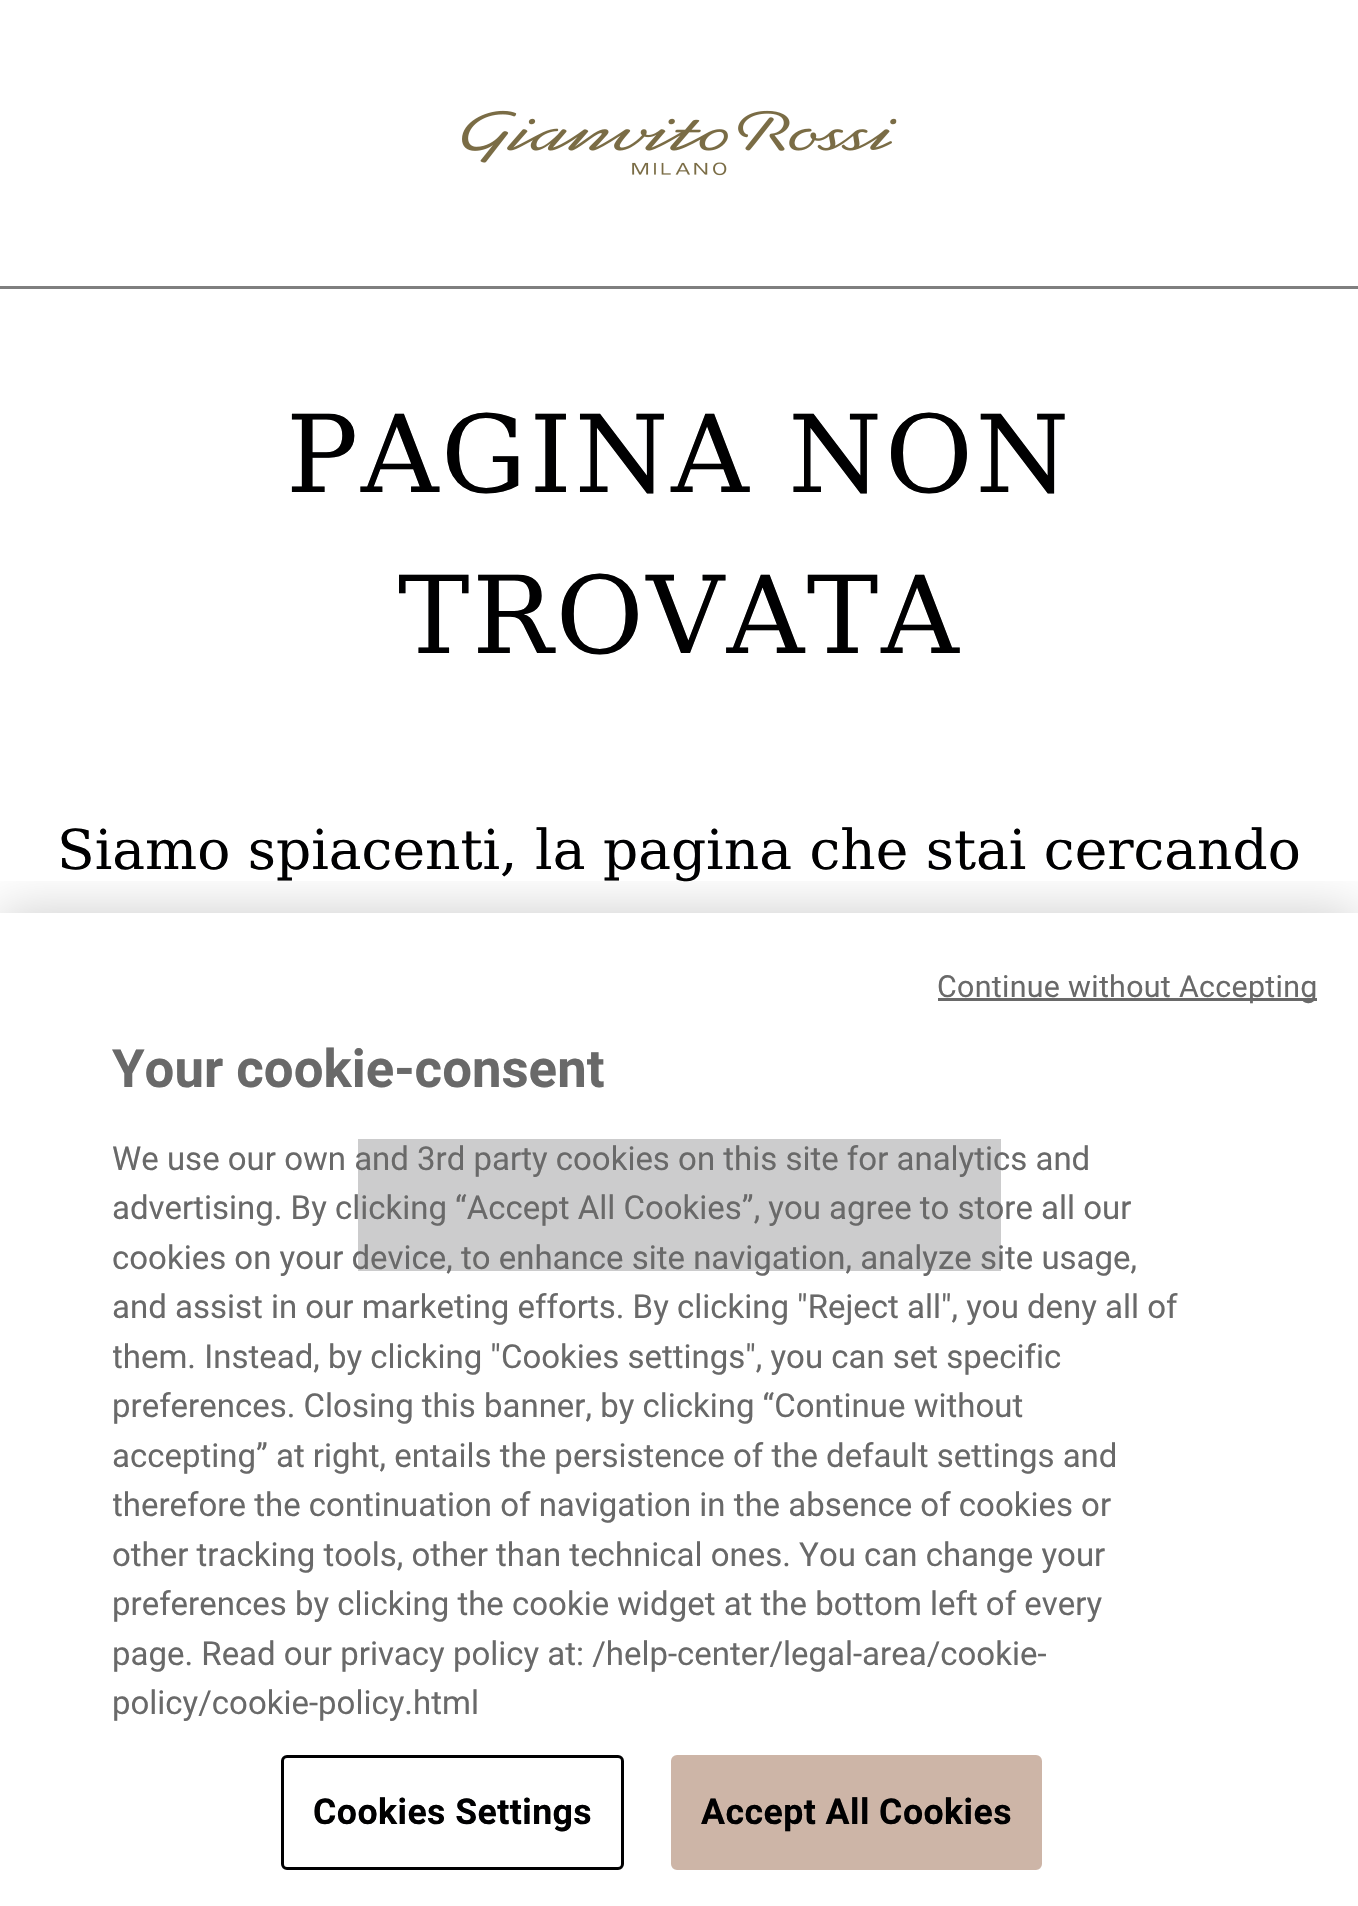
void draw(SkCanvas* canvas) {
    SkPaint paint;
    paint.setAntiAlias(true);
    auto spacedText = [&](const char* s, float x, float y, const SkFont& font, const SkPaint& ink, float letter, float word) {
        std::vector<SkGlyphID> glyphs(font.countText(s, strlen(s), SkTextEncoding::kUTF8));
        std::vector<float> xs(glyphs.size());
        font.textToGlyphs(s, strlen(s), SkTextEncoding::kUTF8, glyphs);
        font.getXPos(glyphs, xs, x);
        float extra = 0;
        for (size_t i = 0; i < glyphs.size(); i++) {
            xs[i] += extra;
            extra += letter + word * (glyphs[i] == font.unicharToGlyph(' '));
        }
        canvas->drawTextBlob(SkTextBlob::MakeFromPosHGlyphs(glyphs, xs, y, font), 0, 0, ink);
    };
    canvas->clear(0xFFFFFFFF);
    paint.setColor(0xFF7F7F7F);
    canvas->drawRect(SkRect::MakeXYWH(0, 286, 1358, 3), paint);
    canvas->drawImageRect(SkImages::DeferredFromEncodedData(SkData::MakeFromFileName("img1.png")), SkRect::MakeXYWH(462, 110, 435, 66), SkSamplingOptions());
    SkFont font1(fontMgr->matchFamilyStyle("DejaVu Serif", SkFontStyle::Normal()), 107.25f);
    font1.setSubpixel(true);
    paint.setColor(0xFF000001);
    spacedText("PAGINA NON", 286, 492, font1, paint, 2.75f, 0);
    spacedText("TROVATA", 398, 653, font1, paint, 2.75f, 0);
    SkFont font2(fontMgr->matchFamilyStyle("DejaVu Serif", SkFontStyle::Normal()), 55);
    font2.setSubpixel(true);
    canvas->drawString("Siamo spiacenti, la pagina che stai cercando", 57, 869, font2, paint);
    canvas->drawRect(SkRect::MakeXYWH(358, 1139, 643, 132), paint);
    canvas->save();
    canvas->clipRect(SkRect::MakeXYWH(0, 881, 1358, 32));
    paint.setColor(0x33000000);
    paint.setMaskFilter(SkMaskFilter::MakeBlur(kNormal_SkBlurStyle, 25));
    canvas->drawRect(SkRect::MakeXYWH(0, 913, 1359, 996), paint);
    paint.setMaskFilter(nullptr);
    canvas->restore();
    paint.setColor(0xCCFFFFFF);
    canvas->drawRect(SkRect::MakeXYWH(358, 1139, 643, 132), paint);
    paint.setColor(0xFF696969);
    canvas->drawRect(SkRect::MakeXYWH(938, 998, 379, 3), paint);
    SkFont font3(fontMgr->matchFamilyStyle("Roboto", SkFontStyle::Normal()), 30.4f);
    font3.setSubpixel(true);
    spacedText("Continue without Accepting", 937, 997, font3, paint, 0.3f, 0);
    SkFont font4(fontMgr->matchFamilyStyle("Roboto", SkFontStyle::Bold()), 52.75f);
    font4.setSubpixel(true);
    canvas->drawString("Your cookie-consent", 112, 1087, font4, paint);
    SkFont font5(fontMgr->matchFamilyStyle("Roboto", SkFontStyle::Normal()), 33);
    font5.setSubpixel(true);
    canvas->drawString("We use our own and 3rd party cookies on this site for analytics and", 112, 1170, font5, paint);
    canvas->drawString("advertising. By clicking “Accept All Cookies”, you agree to store all our", 112, 1219, font5, paint);
    canvas->drawString("cookies on your device, to enhance site navigation, analyze site usage,", 112, 1269, font5, paint);
    canvas->drawString("and assist in our marketing efforts. By clicking \"Reject all\", you deny all of", 112, 1318, font5, paint);
    canvas->save();
    canvas->clipRect(SkRect::MakeXYWH(113, 1037, 1072, 690));
    canvas->drawString("them. Instead, by clicking \"Cookies settings\", you can set specific", 112, 1368, font5, paint);
    canvas->restore();
    canvas->drawString("preferences. Closing this banner, by clicking “Continue without", 112, 1417, font5, paint);
    canvas->drawString("accepting” at right, entails the persistence of the default settings and", 112, 1467, font5, paint);
    canvas->save();
    canvas->clipRect(SkRect::MakeXYWH(113, 1037, 1072, 690));
    canvas->drawString("therefore the continuation of navigation in the absence of cookies or", 112, 1516, font5, paint);
    canvas->restore();
    canvas->drawString("other tracking tools, other than technical ones. You can change your", 112, 1566, font5, paint);
    canvas->drawString("preferences by clicking the cookie widget at the bottom left of every", 112, 1615, font5, paint);
    canvas->drawString("page. Read our privacy policy at: /help-center/legal-area/cookie-", 112, 1665, font5, paint);
    canvas->drawString("policy/cookie-policy.html", 112, 1714, font5, paint);
    paint.setStyle(SkPaint::kStroke_Style);
    paint.setStrokeWidth(3);
    paint.setColor(0xFF000001);
    canvas->drawRoundRect(SkRect::MakeXYWH(282.5f, 1756.5f, 340, 112), 4.5f, 4.5f, paint);
    SkFont font6(fontMgr->matchFamilyStyle("Roboto", SkFontStyle::Bold()), 35.75f);
    font6.setSubpixel(true);
    paint.setStyle(SkPaint::kFill_Style);
    spacedText("Cookies Settings", 313, 1824, font6, paint, 0.4f, 0);
    paint.setColor(0xFFCDB5A7);
    canvas->drawRoundRect(SkRect::MakeXYWH(672.5f, 1756.5f, 368, 112), 4.5f, 4.5f, paint);
    paint.setStyle(SkPaint::kStroke_Style);
    canvas->drawRoundRect(SkRect::MakeXYWH(672.5f, 1756.5f, 368, 112), 4.5f, 4.5f, paint);
    paint.setStyle(SkPaint::kFill_Style);
    paint.setColor(0xFF000001);
    spacedText("Accept All Cookies", 701, 1824, font6, paint, 0.4f, 0);
}
